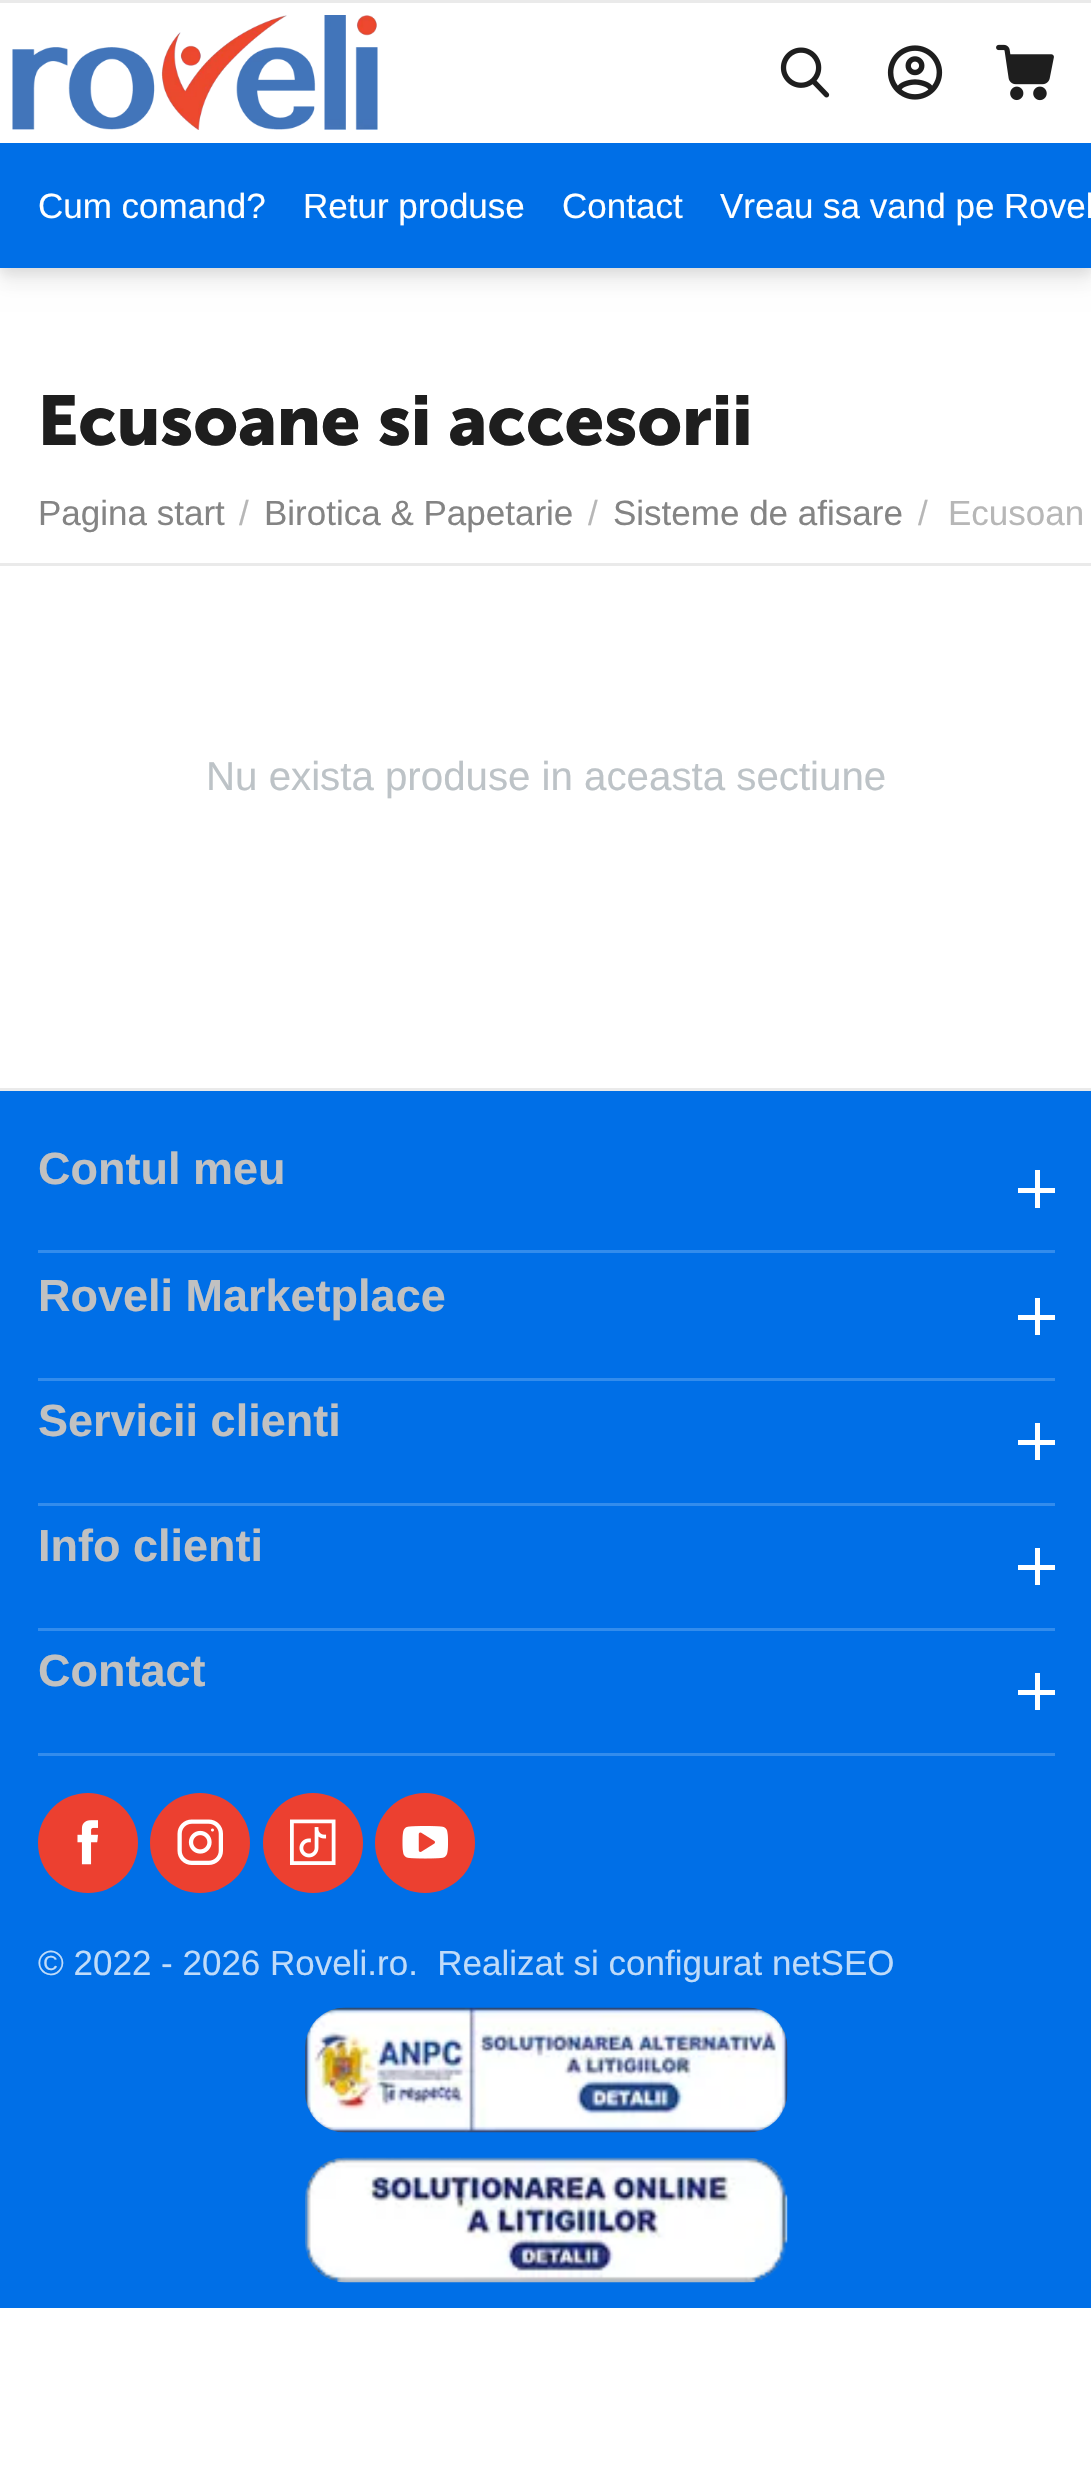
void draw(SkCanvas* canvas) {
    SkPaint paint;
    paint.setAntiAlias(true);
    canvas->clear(0xFFFFFFFF);
    paint.setColor(0x0D000000);
    paint.setMaskFilter(SkMaskFilter::MakeBlur(kNormal_SkBlurStyle, 9));
    canvas->drawRect(SkRect::MakeXYWH(0, 20, 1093, 265), paint);
    paint.setMaskFilter(nullptr);
    paint.setColor(0x1A000000);
    paint.setMaskFilter(SkMaskFilter::MakeBlur(kNormal_SkBlurStyle, 6));
    canvas->drawRect(SkRect::MakeXYWH(0, 8, 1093, 265), paint);
    paint.setMaskFilter(nullptr);
    paint.setColor(0xFFEAEAEA);
    canvas->drawRect(SkRect::MakeXYWH(0, 0, 1091, 3), paint);
    paint.setColor(0xFFFFFFFF);
    canvas->drawRect(SkRect::MakeXYWH(0, 3, 1091, 140), paint);
    canvas->drawImageRect(SkImages::DeferredFromEncodedData(SkData::MakeFromFileName("img1.png")), SkRect::MakeXYWH(12, 15, 366, 115), SkSamplingOptions());
    canvas->drawImageRect(SkImages::DeferredFromEncodedData(SkData::MakeFromFileName("img2.png")), SkRect::MakeXYWH(780, 47, 50, 51), SkSamplingOptions());
    canvas->drawImageRect(SkImages::DeferredFromEncodedData(SkData::MakeFromFileName("img3.png")), SkRect::MakeXYWH(887, 45, 56, 55), SkSamplingOptions());
    canvas->drawImageRect(SkImages::DeferredFromEncodedData(SkData::MakeFromFileName("img4.png")), SkRect::MakeXYWH(996, 44, 58, 57), SkSamplingOptions());
    paint.setColor(0xFF006FE7);
    canvas->drawRect(SkRect::MakeXYWH(0, 143, 1091, 125), paint);
    SkFont font1(fontMgr->matchFamilyStyle("Liberation Sans", SkFontStyle::Normal()), 35);
    font1.setSubpixel(true);
    paint.setColor(0xFFFFFFFF);
    canvas->drawString("Cum comand?", 38, 218, font1, paint);
    canvas->drawString("Retur produse", 303, 218, font1, paint);
    canvas->drawString("Contact", 562, 218, font1, paint);
    canvas->drawString("Vreau sa vand pe Rovel", 720, 218, font1, paint);
    SkFont font2(fontMgr->matchFamilyStyle("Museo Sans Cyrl", SkFontStyle::Bold()), 70);
    font2.setSubpixel(true);
    paint.setColor(0xFF1E1E1E);
    canvas->drawString("Ecusoane si accesorii", 38, 445, font2, paint);
    paint.setColor(0xFFEAEAEA);
    canvas->drawRect(SkRect::MakeXYWH(0, 563, 1091, 3), paint);
    paint.setColor(0xFF848484);
    canvas->drawString("Pagina start", 38, 525, font1, paint);
    paint.setColor(0xFFB7B7B7);
    canvas->drawString("/", 239, 525, font1, paint);
    paint.setColor(0xFF848484);
    canvas->drawString("Birotica & Papetarie", 264, 525, font1, paint);
    paint.setColor(0xFFB7B7B7);
    canvas->drawString("/", 588, 525, font1, paint);
    paint.setColor(0xFF848484);
    canvas->drawString("Sisteme de afisare", 613, 525, font1, paint);
    paint.setColor(0xFFB7B7B7);
    canvas->drawString("/", 918, 525, font1, paint);
    canvas->drawString("Ecusoan", 948, 525, font1, paint);
    SkFont font3(fontMgr->matchFamilyStyle("Liberation Sans", SkFontStyle::Normal()), 40.25f);
    font3.setSubpixel(true);
    paint.setColor(0xFFBDC3C7);
    canvas->drawString("Nu exista produse in aceasta sectiune", 206, 790, font3, paint);
    paint.setColor(0xFF006FE7);
    canvas->drawRect(SkRect::MakeXYWH(0, 1091, 1091, 1217), paint);
    paint.setColor(0xFFEAEAEA);
    canvas->drawRect(SkRect::MakeXYWH(0, 1088, 1091, 3), paint);
    paint.setColor(0xFF338CEC);
    canvas->drawRect(SkRect::MakeXYWH(38, 1250, 1017, 3), paint);
    SkFont font4(fontMgr->matchFamilyStyle("Liberation Sans", SkFontStyle::Bold()), 45);
    font4.setSubpixel(true);
    paint.setColor(0xFFC1C1C1);
    canvas->drawString("Contul meu", 38, 1184, font4, paint);
    paint.setColor(0xFFFFFFFF);
    canvas->drawRect(SkRect::MakeXYWH(1035, 1170, 5, 38), paint);
    canvas->drawRect(SkRect::MakeXYWH(1018, 1188, 37, 5), paint);
    paint.setColor(0xFF338CEC);
    canvas->drawRect(SkRect::MakeXYWH(38, 1378, 1017, 3), paint);
    paint.setColor(0xFFC1C1C1);
    canvas->drawString("Roveli Marketplace", 38, 1311, font4, paint);
    paint.setColor(0xFFFFFFFF);
    canvas->drawRect(SkRect::MakeXYWH(1035, 1298, 5, 37), paint);
    canvas->drawRect(SkRect::MakeXYWH(1018, 1315, 37, 5), paint);
    paint.setColor(0xFF338CEC);
    canvas->drawRect(SkRect::MakeXYWH(38, 1503, 1017, 3), paint);
    paint.setColor(0xFFC1C1C1);
    canvas->drawString("Servicii clienti", 38, 1436, font4, paint);
    paint.setColor(0xFFFFFFFF);
    canvas->drawRect(SkRect::MakeXYWH(1035, 1423, 5, 37), paint);
    canvas->drawRect(SkRect::MakeXYWH(1018, 1440, 37, 5), paint);
    paint.setColor(0xFF338CEC);
    canvas->drawRect(SkRect::MakeXYWH(38, 1628, 1017, 3), paint);
    paint.setColor(0xFFC1C1C1);
    canvas->drawString("Info clienti", 38, 1561, font4, paint);
    paint.setColor(0xFFFFFFFF);
    canvas->drawRect(SkRect::MakeXYWH(1035, 1548, 5, 37), paint);
    canvas->drawRect(SkRect::MakeXYWH(1018, 1565, 37, 5), paint);
    paint.setColor(0xFF338CEC);
    canvas->drawRect(SkRect::MakeXYWH(38, 1753, 1017, 3), paint);
    paint.setColor(0xFFC1C1C1);
    canvas->drawString("Contact", 38, 1686, font4, paint);
    paint.setColor(0xFFFFFFFF);
    canvas->drawRect(SkRect::MakeXYWH(1035, 1673, 5, 37), paint);
    canvas->drawRect(SkRect::MakeXYWH(1018, 1690, 37, 5), paint);
    paint.setColor(0xFFEC4030);
    canvas->drawCircle(88, 1843, 50, paint);
    canvas->drawImageRect(SkImages::DeferredFromEncodedData(SkData::MakeFromFileName("img5.png")), SkRect::MakeXYWH(77, 1820, 21, 45), SkSamplingOptions());
    canvas->drawCircle(200, 1843, 50, paint);
    canvas->drawImageRect(SkImages::DeferredFromEncodedData(SkData::MakeFromFileName("img6.png")), SkRect::MakeXYWH(177, 1819, 46, 46), SkSamplingOptions());
    canvas->drawCircle(313, 1843, 50, paint);
    canvas->drawImageRect(SkImages::DeferredFromEncodedData(SkData::MakeFromFileName("img7.png")), SkRect::MakeXYWH(290, 1819, 46, 46), SkSamplingOptions());
    canvas->drawCircle(425, 1843, 50, paint);
    canvas->drawImageRect(SkImages::DeferredFromEncodedData(SkData::MakeFromFileName("img8.png")), SkRect::MakeXYWH(402, 1826, 46, 33), SkSamplingOptions());
    paint.setColor(0xFFBFDBF9);
    canvas->drawString("© 2022 - 2026 Roveli.ro.  Realizat si configurat netSEO", 38, 1975, font1, paint);
    canvas->drawImageRect(SkImages::DeferredFromEncodedData(SkData::MakeFromFileName("img9.png")), SkRect::MakeXYWH(305, 2007, 483, 126), SkSamplingOptions());
    canvas->drawImageRect(SkImages::DeferredFromEncodedData(SkData::MakeFromFileName("img10.png")), SkRect::MakeXYWH(305, 2157, 483, 126), SkSamplingOptions());
}
